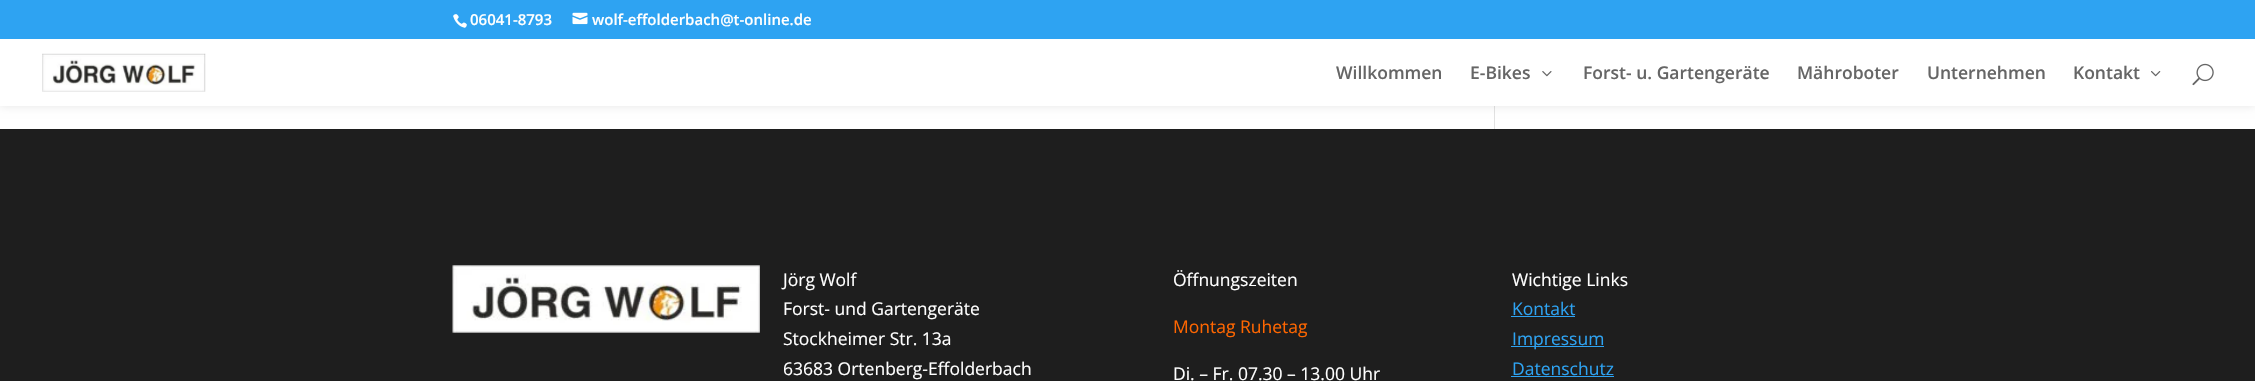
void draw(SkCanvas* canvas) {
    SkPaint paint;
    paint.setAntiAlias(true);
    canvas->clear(0xFFFFFFFF);
    paint.setColor(0xFFE2E2E2);
    canvas->drawRect(SkRect::MakeXYWH(1494, 106, 1, 23), paint);
    paint.setColor(0x1A000000);
    paint.setMaskFilter(SkMaskFilter::MakeBlur(kNormal_SkBlurStyle, 4.5f));
    canvas->drawRect(SkRect::MakeXYWH(0, 39, 2255, 67), paint);
    paint.setMaskFilter(nullptr);
    paint.setColor(0xFF2EA3F2);
    canvas->drawRect(SkRect::MakeXYWH(0, 0, 2255, 39), paint);
    canvas->drawImageRect(SkImages::DeferredFromEncodedData(SkData::MakeFromFileName("img1.png")), SkRect::MakeXYWH(453, 14, 14, 14), SkSamplingOptions());
    SkFont font1(fontMgr->matchFamilyStyle("Open Sans", SkFontStyle(600, SkFontStyle::kNormal_Width, SkFontStyle::kUpright_Slant)), 15);
    font1.setSubpixel(true);
    paint.setColor(0xFFFFFFFF);
    canvas->drawString("06041-8793", 470, 25, font1, paint);
    canvas->drawImageRect(SkImages::DeferredFromEncodedData(SkData::MakeFromFileName("img2.png")), SkRect::MakeXYWH(572, 12, 16, 13), SkSamplingOptions());
    canvas->drawString("wolf-effolderbach@t-online.de", 592, 25, font1, paint);
    canvas->drawRect(SkRect::MakeXYWH(0, 39, 2255, 67), paint);
    canvas->drawImageRect(SkImages::DeferredFromEncodedData(SkData::MakeFromFileName("img3.png")), SkRect::MakeXYWH(42, 53, 164, 39), SkSamplingOptions());
    SkFont font2(fontMgr->matchFamilyStyle("Open Sans", SkFontStyle(600, SkFontStyle::kNormal_Width, SkFontStyle::kUpright_Slant)), 17.5f);
    font2.setSubpixel(true);
    paint.setColor(0xFF666666);
    canvas->drawString("Willkommen", 1336, 79, font2, paint);
    canvas->drawString("E-Bikes", 1470, 79, font2, paint);
    canvas->drawImageRect(SkImages::DeferredFromEncodedData(SkData::MakeFromFileName("img4.png")), SkRect::MakeXYWH(1542, 71, 10, 6), SkSamplingOptions());
    canvas->drawString("Forst- u. Gartengeräte", 1583, 79, font2, paint);
    canvas->drawString("Mähroboter", 1797, 79, font2, paint);
    canvas->drawString("Unternehmen", 1927, 79, font2, paint);
    canvas->drawString("Kontakt", 2073, 79, font2, paint);
    canvas->drawImageRect(SkImages::DeferredFromEncodedData(SkData::MakeFromFileName("img5.png")), SkRect::MakeXYWH(2151, 71, 10, 6), SkSamplingOptions());
    canvas->drawImageRect(SkImages::DeferredFromEncodedData(SkData::MakeFromFileName("img6.png")), SkRect::MakeXYWH(2192, 63, 22, 23), SkSamplingOptions());
    paint.setColor(0xFF1E1E1E);
    canvas->drawRect(SkRect::MakeXYWH(0, 129, 2255, 252), paint);
    canvas->drawImageRect(SkImages::DeferredFromEncodedData(SkData::MakeFromFileName("img7.png")), SkRect::MakeXYWH(452, 265, 308, 68), SkSamplingOptions());
    SkFont font3(fontMgr->matchFamilyStyle("Open Sans", SkFontStyle::Normal()), 17.5f);
    font3.setSubpixel(true);
    paint.setColor(0xFFFFFFFF);
    canvas->drawString("Jörg Wolf", 783, 286, font3, paint);
    canvas->drawString("Forst- und Gartengeräte", 783, 315, font3, paint);
    canvas->drawString("Stockheimer Str. 13a", 783, 345, font3, paint);
    canvas->drawString("63683 Ortenberg-Effolderbach", 783, 375, font3, paint);
    canvas->drawString("Öffnungszeiten", 1173, 286, font3, paint);
    paint.setColor(0xFFFF6600);
    canvas->drawString("Montag Ruhetag", 1173, 333, font3, paint);
    paint.setColor(0xFFFFFFFF);
    canvas->drawString("Di. – Fr. 07.30 – 13.00 Uhr", 1173, 380, font3, paint);
    canvas->drawString("Wichtige Links", 1512, 286, font3, paint);
    paint.setColor(0xFF2EA3F2);
    canvas->drawString("Kontakt", 1512, 315, font3, paint);
    canvas->drawRect(SkRect::MakeXYWH(1511, 316, 64, 1), paint);
    canvas->drawRect(SkRect::MakeXYWH(1511, 346, 93, 1), paint);
    canvas->drawString("Impressum", 1512, 345, font3, paint);
    canvas->drawString("Datenschutz", 1512, 375, font3, paint);
    canvas->drawRect(SkRect::MakeXYWH(1511, 376, 103, 1), paint);
}
